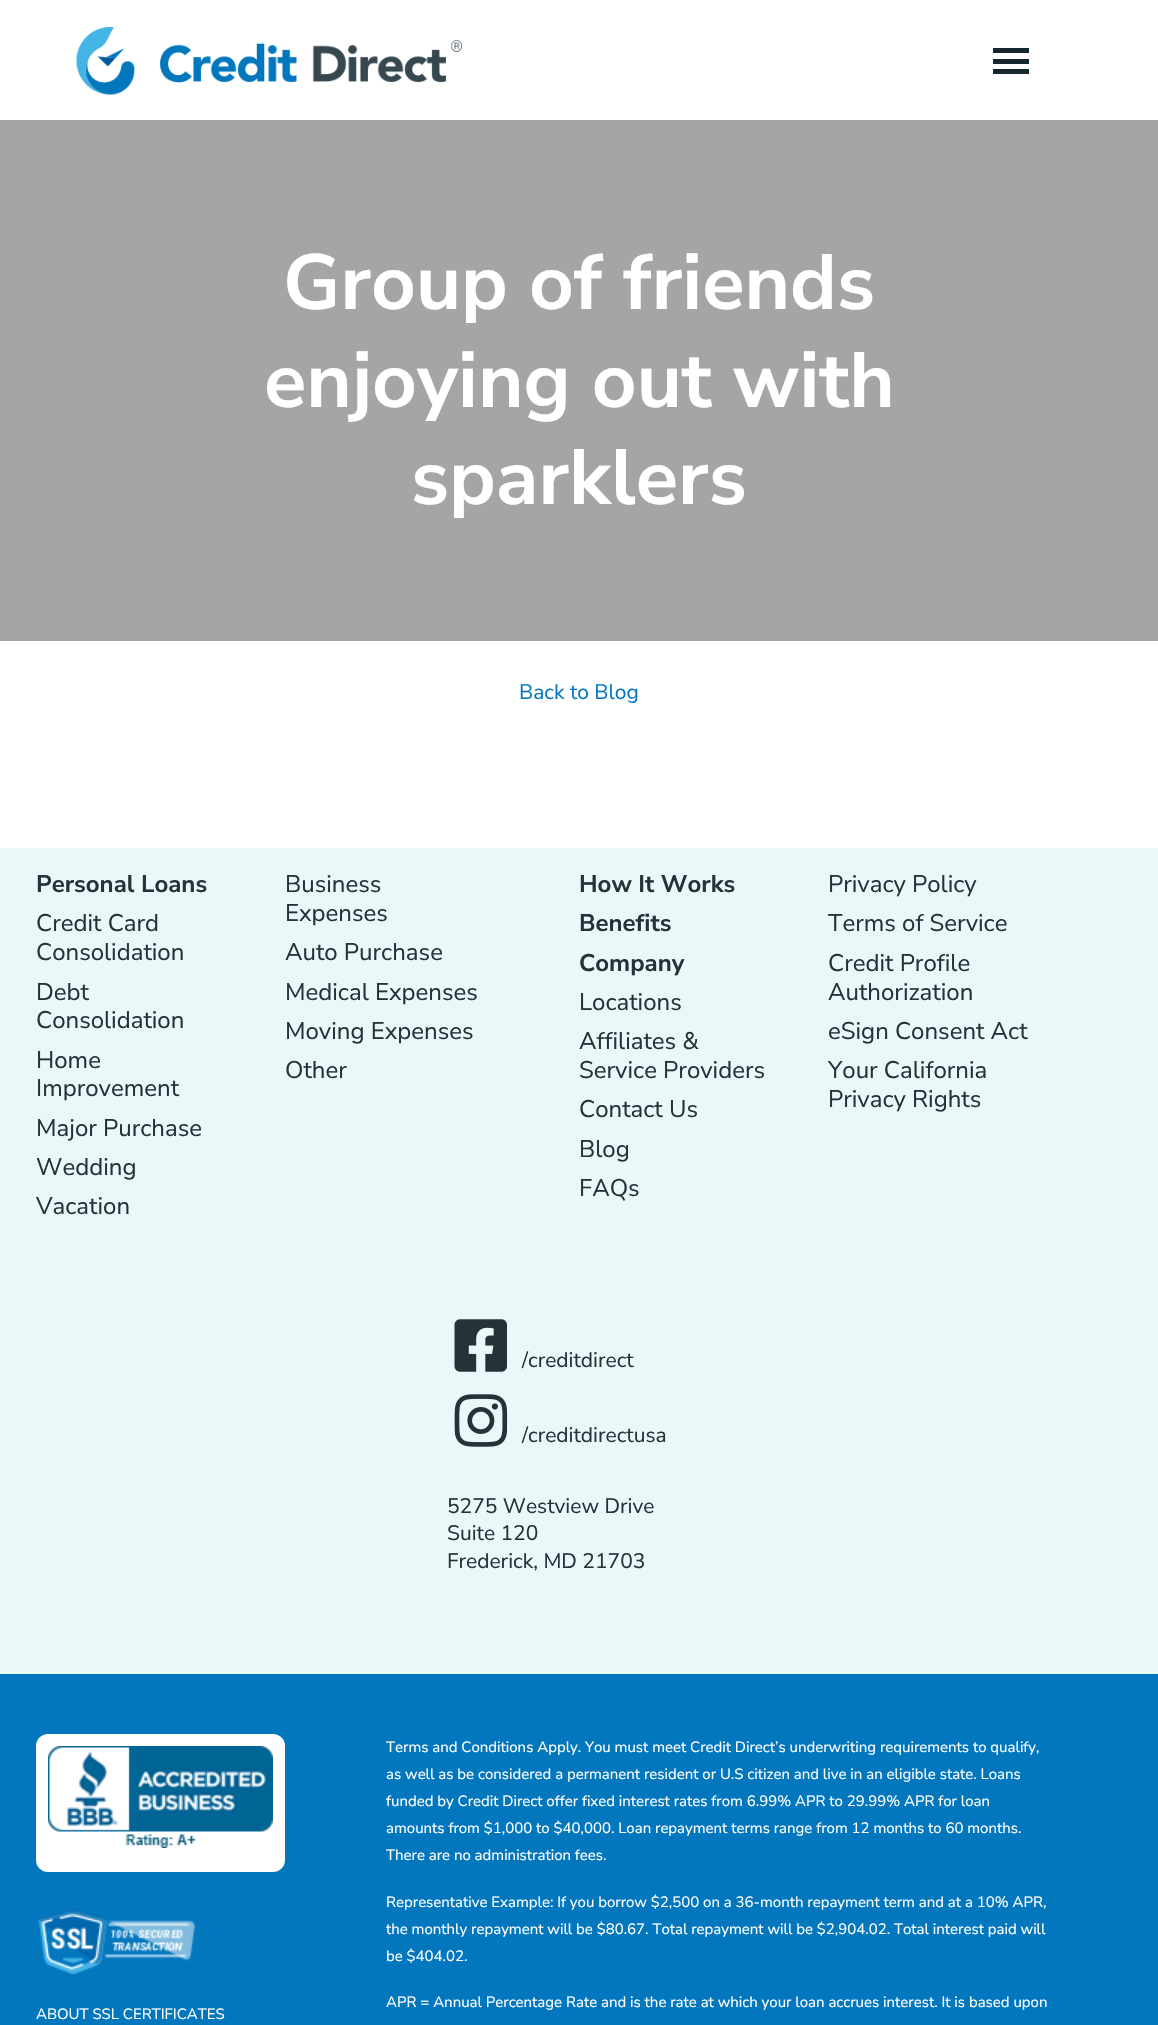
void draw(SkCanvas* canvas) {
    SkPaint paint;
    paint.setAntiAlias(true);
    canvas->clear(0xFFFFFFFF);
    canvas->drawImageRect(SkImages::DeferredFromEncodedData(SkData::MakeFromFileName("img1.png")), SkRect::MakeXYWH(76, 27, 386, 68), SkSamplingOptions());
    paint.setColor(0xFF16272F);
    canvas->drawRect(SkRect::MakeXYWH(993, 59, 36, 5), paint);
    canvas->drawRect(SkRect::MakeXYWH(993, 48, 36, 5), paint);
    canvas->drawRect(SkRect::MakeXYWH(993, 69, 36, 5), paint);
    paint.setColor(0xFFA5A5A5);
    canvas->drawRect(SkRect::MakeXYWH(0, 120, 1158, 521), paint);
    SkFont font1(fontMgr->matchFamilyStyle("Nunito Sans", SkFontStyle::Bold()), 78);
    font1.setSubpixel(true);
    paint.setColor(0xFFFFFFFF);
    canvas->drawString("Group of friends", 283, 309, font1, paint);
    canvas->drawString("enjoying out with", 264, 407, font1, paint);
    canvas->drawString("sparklers", 411, 504, font1, paint);
    SkFont font2(fontMgr->matchFamilyStyle("Nunito Sans", SkFontStyle::Normal()), 21);
    font2.setSubpixel(true);
    paint.setColor(0xFF0377BE);
    canvas->drawString("Back to Blog", 519, 699, font2, paint);
    paint.setColor(0xFFECF7F9);
    canvas->drawRect(SkRect::MakeXYWH(0, 848, 1158, 826), paint);
    SkFont font3(fontMgr->matchFamilyStyle("Nunito Sans", SkFontStyle::Bold()), 24);
    font3.setSubpixel(true);
    paint.setColor(0xFF263238);
    canvas->drawString("Personal Loans", 36, 892, font3, paint);
    SkFont font4(fontMgr->matchFamilyStyle("Nunito Sans", SkFontStyle::Normal()), 24);
    font4.setSubpixel(true);
    canvas->drawString("Credit Card", 36, 931, font4, paint);
    canvas->drawString("Consolidation", 36, 960, font4, paint);
    canvas->drawString("Debt", 36, 1000, font4, paint);
    canvas->drawString("Consolidation", 36, 1028, font4, paint);
    canvas->drawString("Home", 36, 1068, font4, paint);
    canvas->drawString("Improvement", 36, 1096, font4, paint);
    canvas->drawString("Major Purchase", 36, 1136, font4, paint);
    canvas->drawString("Wedding", 36, 1175, font4, paint);
    canvas->drawString("Vacation", 36, 1214, font4, paint);
    canvas->drawString("Business", 285, 892, font4, paint);
    canvas->drawString("Expenses", 285, 921, font4, paint);
    canvas->drawString("Auto Purchase", 285, 960, font4, paint);
    canvas->drawString("Medical Expenses", 285, 1000, font4, paint);
    canvas->drawString("Moving Expenses", 285, 1039, font4, paint);
    canvas->drawString("Other", 285, 1078, font4, paint);
    canvas->drawString("How It Works", 579, 892, font3, paint);
    canvas->drawString("Benefits", 579, 931, font3, paint);
    canvas->drawString("Company", 579, 971, font3, paint);
    canvas->drawString("Locations", 579, 1010, font4, paint);
    canvas->drawString("Affiliates &", 579, 1049, font4, paint);
    canvas->drawString("Service Providers", 579, 1078, font4, paint);
    canvas->drawString("Contact Us", 579, 1117, font4, paint);
    canvas->drawString("Blog", 579, 1157, font4, paint);
    canvas->drawString("FAQs", 579, 1196, font4, paint);
    canvas->drawString("Privacy Policy", 828, 892, font4, paint);
    canvas->drawString("Terms of Service", 828, 931, font4, paint);
    canvas->drawString("Credit Profile", 828, 971, font4, paint);
    canvas->drawString("Authorization", 828, 1000, font4, paint);
    canvas->drawString("eSign Consent Act", 828, 1039, font4, paint);
    canvas->drawString("Your California", 828, 1078, font4, paint);
    canvas->drawString("Privacy Rights", 828, 1107, font4, paint);
    canvas->drawImageRect(SkImages::DeferredFromEncodedData(SkData::MakeFromFileName("img2.png")), SkRect::MakeXYWH(454, 1319, 53, 53), SkSamplingOptions());
    canvas->drawString("/creditdirect", 522, 1367, font2, paint);
    canvas->drawImageRect(SkImages::DeferredFromEncodedData(SkData::MakeFromFileName("img3.png")), SkRect::MakeXYWH(454, 1394, 54, 53), SkSamplingOptions());
    canvas->drawString("/creditdirectusa", 522, 1442, font2, paint);
    canvas->drawString("5275 Westview Drive", 447, 1513, font2, paint);
    canvas->drawString("Suite 120", 447, 1540, font2, paint);
    canvas->drawString("Frederick, MD 21703", 447, 1568, font2, paint);
    paint.setColor(0xFF0377BE);
    canvas->drawRect(SkRect::MakeXYWH(0, 1674, 1158, 351), paint);
    SkFont font5(fontMgr->matchFamilyStyle("Nunito Sans", SkFontStyle::Normal()), 15);
    font5.setSubpixel(true);
    paint.setColor(0xFFFFFFFF);
    canvas->drawString("Terms and Conditions Apply. You must meet Credit Direct’s underwriting requirements to qualify,", 386, 1752, font5, paint);
    canvas->drawString("as well as be considered a permanent resident or U.S citizen and live in an eligible state. Loans", 386, 1779, font5, paint);
    canvas->drawString("funded by Credit Direct offer fixed interest rates from 6.99% APR to 29.99% APR for loan", 386, 1806, font5, paint);
    canvas->drawString("amounts from $1,000 to $40,000. Loan repayment terms range from 12 months to 60 months.", 386, 1833, font5, paint);
    canvas->drawString("There are no administration fees.", 386, 1860, font5, paint);
    canvas->drawString("Representative Example: If you borrow $2,500 on a 36-month repayment term and at a 10% APR,", 386, 1907, font5, paint);
    canvas->drawString("the monthly repayment will be $80.67. Total repayment will be $2,904.02. Total interest paid will", 386, 1934, font5, paint);
    canvas->drawString("be $404.02.", 386, 1961, font5, paint);
    canvas->drawString("APR = Annual Percentage Rate and is the rate at which your loan accrues interest. It is based upon", 386, 2007, font5, paint);
    canvas->drawRoundRect(SkRect::MakeXYWH(36, 1734, 249, 138), 12, 12, paint);
    canvas->drawImageRect(SkImages::DeferredFromEncodedData(SkData::MakeFromFileName("img4.png")), SkRect::MakeXYWH(48, 1746, 225, 102), SkSamplingOptions());
    canvas->drawImageRect(SkImages::DeferredFromEncodedData(SkData::MakeFromFileName("img5.png")), SkRect::MakeXYWH(38, 1909, 157, 66), SkSamplingOptions());
    canvas->drawString("ABOUT SSL CERTIFICATES", 36, 2019, font5, paint);
}
